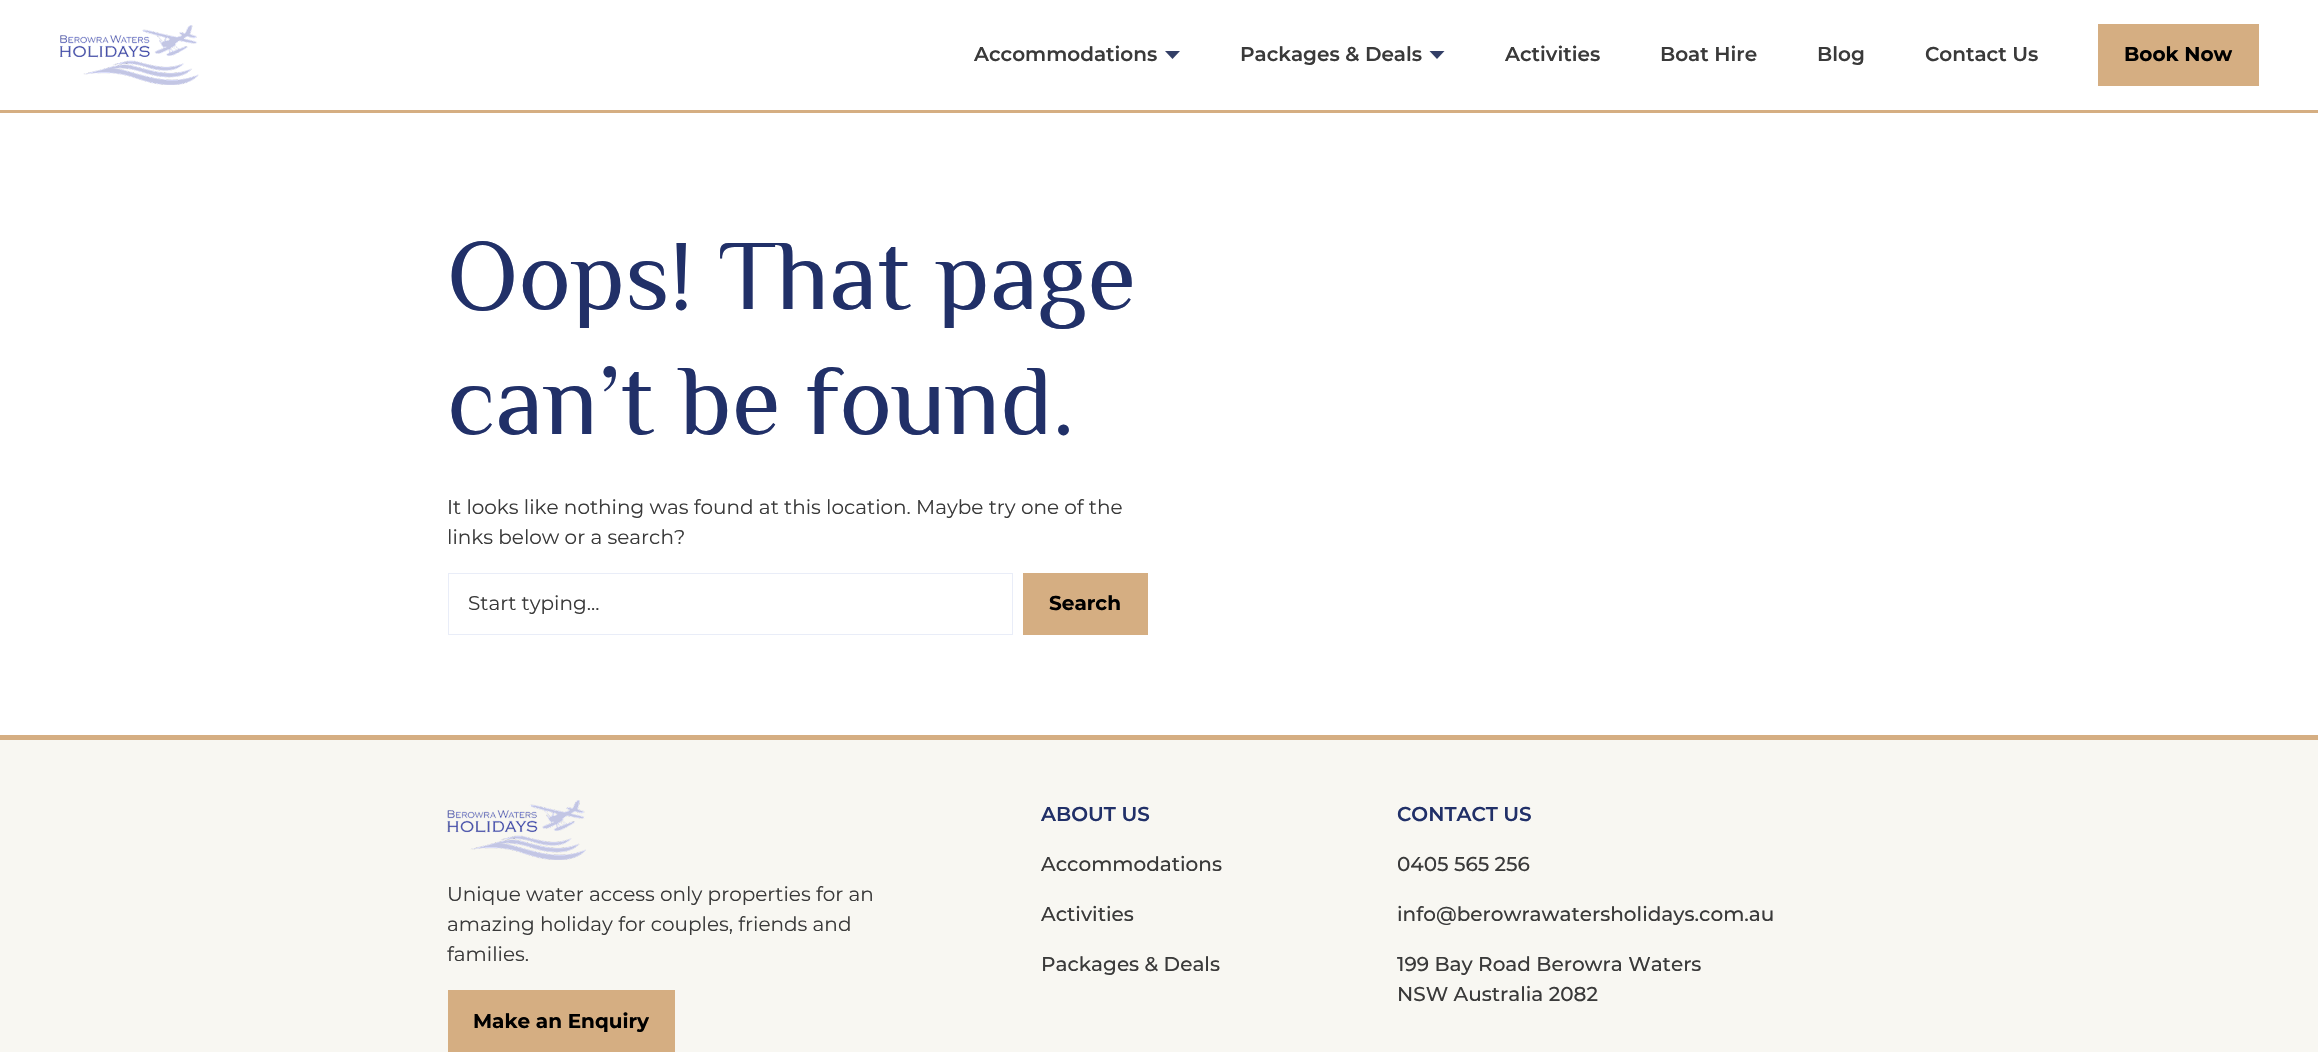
void draw(SkCanvas* canvas) {
    SkPaint paint;
    paint.setAntiAlias(true);
    canvas->clear(0xFFFFFFFF);
    paint.setColor(0xFFD5AE82);
    canvas->drawRect(SkRect::MakeXYWH(0, 110, 2318, 3), paint);
    canvas->drawImageRect(SkImages::DeferredFromEncodedData(SkData::MakeFromFileName("img1.png")), SkRect::MakeXYWH(60, 25, 139, 60), SkSamplingOptions());
    SkFont font1(fontMgr->matchFamilyStyle("Montserrat", SkFontStyle(600, SkFontStyle::kNormal_Width, SkFontStyle::kUpright_Slant)), 20);
    font1.setSubpixel(true);
    paint.setColor(0xFF3A3A3A);
    canvas->drawString("Accommodations", 974, 61, font1, paint);
    paint.setColor(0xFF333F67);
    canvas->drawPath(SkPathBuilder().moveTo(1165, 51).lineTo(1180, 51).lineTo(1172.5f, 59).close().detach(), paint);
    paint.setColor(0xFF3A3A3A);
    canvas->drawString("Packages & Deals", 1240, 61, font1, paint);
    paint.setColor(0xFF333F67);
    canvas->drawPath(SkPathBuilder().moveTo(1429.5f, 51).lineTo(1444.5f, 51).lineTo(1437, 59).close().detach(), paint);
    paint.setColor(0xFF3A3A3A);
    canvas->drawString("Activities", 1505, 61, font1, paint);
    canvas->drawString("Boat Hire", 1660, 61, font1, paint);
    canvas->drawString("Blog", 1817, 61, font1, paint);
    canvas->drawString("Contact Us", 1925, 61, font1, paint);
    paint.setColor(0xFFD5AE82);
    canvas->drawRect(SkRect::MakeXYWH(2098, 24, 161, 62), paint);
    SkFont font2(fontMgr->matchFamilyStyle("Montserrat", SkFontStyle::Bold()), 20);
    font2.setSubpixel(true);
    paint.setColor(0xFF000000);
    canvas->drawString("Book Now", 2124, 61, font2, paint);
    SkFont font3(fontMgr->matchFamilyStyle("Philosopher", SkFontStyle::Normal()), 100);
    font3.setSubpixel(true);
    paint.setColor(0xFF213068);
    canvas->drawString("Oops! That page", 447, 309, font3, paint);
    canvas->drawString("can’t be found.", 447, 434, font3, paint);
    SkFont font4(fontMgr->matchFamilyStyle("Montserrat", SkFontStyle::Normal()), 20);
    font4.setSubpixel(true);
    paint.setColor(0xFF3A3A3A);
    canvas->drawString("It looks like nothing was found at this location. Maybe try one of the", 447, 514, font4, paint);
    canvas->drawString("links below or a search?", 447, 544, font4, paint);
    paint.setStyle(SkPaint::kStroke_Style);
    paint.setStrokeWidth(1);
    paint.setColor(0xFFE9EDF8);
    canvas->drawRect(SkRect::MakeXYWH(448.5f, 573.5f, 564, 61), paint);
    paint.setStyle(SkPaint::kFill_Style);
    paint.setColor(0xFF3A3A3A);
    canvas->drawString("Start typing...", 468, 610, font4, paint);
    paint.setColor(0xFFD5AE82);
    canvas->drawRect(SkRect::MakeXYWH(1023, 573, 125, 62), paint);
    paint.setColor(0xFF000000);
    canvas->drawString("Search", 1049, 610, font2, paint);
    paint.setColor(0xFFF8F7F2);
    canvas->drawRect(SkRect::MakeXYWH(0, 740, 2318, 312), paint);
    paint.setColor(0xFFD5AE82);
    canvas->drawRect(SkRect::MakeXYWH(0, 735, 2318, 5), paint);
    canvas->drawImageRect(SkImages::DeferredFromEncodedData(SkData::MakeFromFileName("img2.png")), SkRect::MakeXYWH(447, 800, 139, 60), SkSamplingOptions());
    paint.setColor(0xFF3A3A3A);
    canvas->drawString("Unique water access only properties for an", 447, 901, font4, paint);
    canvas->drawString("amazing holiday for couples, friends and", 447, 931, font4, paint);
    canvas->drawString("families.", 447, 961, font4, paint);
    paint.setColor(0xFFD5AE82);
    canvas->drawRect(SkRect::MakeXYWH(448, 990, 227, 62), paint);
    paint.setColor(0xFF000000);
    canvas->drawString("Make an Enquiry", 473, 1028, font2, paint);
    paint.setColor(0xFF213068);
    canvas->drawString("ABOUT US", 1041, 821, font1, paint);
    SkFont font5(fontMgr->matchFamilyStyle("Montserrat", SkFontStyle(500, SkFontStyle::kNormal_Width, SkFontStyle::kUpright_Slant)), 20);
    font5.setSubpixel(true);
    paint.setColor(0xFF3A3A3A);
    canvas->drawString("Accommodations", 1041, 871, font5, paint);
    canvas->drawString("Activities", 1041, 921, font5, paint);
    canvas->drawString("Packages & Deals", 1041, 971, font5, paint);
    paint.setColor(0xFF213068);
    canvas->drawString("CONTACT US", 1397, 821, font1, paint);
    paint.setColor(0xFF3A3A3A);
    canvas->drawString("0405 565 256", 1397, 871, font5, paint);
    canvas->drawString("info@berowrawatersholidays.com.au", 1397, 921, font5, paint);
    canvas->drawString("199 Bay Road Berowra Waters", 1397, 971, font5, paint);
    canvas->drawString("NSW Australia 2082", 1397, 1001, font5, paint);
}
